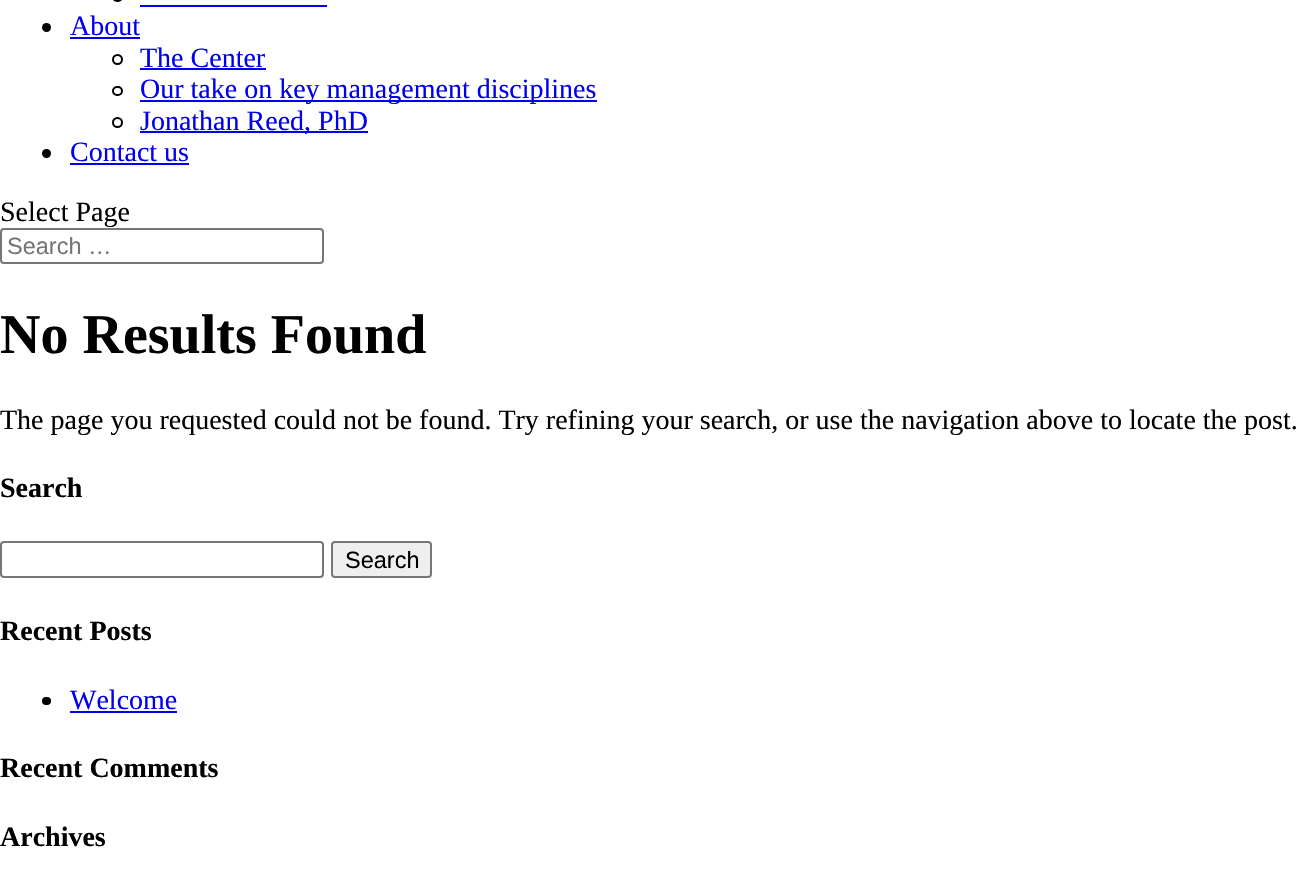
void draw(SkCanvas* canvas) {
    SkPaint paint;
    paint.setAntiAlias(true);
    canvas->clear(0xFFFFFFFF);
    paint.setStyle(SkPaint::kStroke_Style);
    paint.setStrokeWidth(2);
    paint.setColor(0xFF000000);
    canvas->drawRoundRect(SkRect::MakeXYWH(113, -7, 9, 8), 4.5f, 4.5f, paint);
    paint.setStyle(SkPaint::kFill_Style);
    paint.setColor(0xFF0000EE);
    canvas->drawRect(SkRect::MakeXYWH(140, 5, 187, 2), paint);
    paint.setColor(0xFF000000);
    canvas->drawCircle(46.5f, 27.5f, 4.5f, paint);
    SkFont font1(fontMgr->matchFamilyStyle("Liberation Serif", SkFontStyle::Normal()), 28);
    font1.setSubpixel(true);
    paint.setColor(0xFF0000EE);
    canvas->drawString("About", 70, 35, font1, paint);
    canvas->drawRect(SkRect::MakeXYWH(70, 37, 70, 2), paint);
    paint.setStyle(SkPaint::kStroke_Style);
    paint.setColor(0xFF000000);
    canvas->drawCircle(117.5f, 59.5f, 4.5f, paint);
    paint.setStyle(SkPaint::kFill_Style);
    paint.setColor(0xFF0000EE);
    canvas->drawString("The Center", 140, 67, font1, paint);
    canvas->drawRect(SkRect::MakeXYWH(140, 68, 126, 2), paint);
    paint.setStyle(SkPaint::kStroke_Style);
    paint.setColor(0xFF000000);
    canvas->drawRoundRect(SkRect::MakeXYWH(113, 87, 9, 8), 4, 4, paint);
    paint.setStyle(SkPaint::kFill_Style);
    paint.setColor(0xFF0000EE);
    canvas->drawRect(SkRect::MakeXYWH(140, 100, 457, 2), paint);
    canvas->drawString("Our take on key management disciplines", 140, 98, font1, paint);
    paint.setStyle(SkPaint::kStroke_Style);
    paint.setColor(0xFF000000);
    canvas->drawCircle(117.5f, 122.5f, 4.5f, paint);
    paint.setStyle(SkPaint::kFill_Style);
    paint.setColor(0xFF0000EE);
    canvas->drawRect(SkRect::MakeXYWH(140, 131, 228, 2), paint);
    canvas->drawString("Jonathan Reed, PhD", 140, 130, font1, paint);
    paint.setColor(0xFF000000);
    canvas->drawCircle(46.5f, 153.5f, 4.5f, paint);
    paint.setColor(0xFF0000EE);
    canvas->drawString("Contact us", 70, 161, font1, paint);
    canvas->drawRect(SkRect::MakeXYWH(70, 163, 119, 2), paint);
    paint.setColor(0xFF000000);
    canvas->drawString("Select Page", 0, 221, font1, paint);
    paint.setStyle(SkPaint::kStroke_Style);
    paint.setColor(0xFF767676);
    canvas->drawRoundRect(SkRect::MakeXYWH(1, 229, 322, 34), 3, 3, paint);
    SkFont font2(fontMgr->matchFamilyStyle("Liberation Sans", SkFontStyle::Normal()), 23.5f);
    font2.setSubpixel(true);
    paint.setStyle(SkPaint::kFill_Style);
    paint.setColor(0xFF757575);
    canvas->drawString("Search …", 7, 254, font2, paint);
    SkFont font3(fontMgr->matchFamilyStyle("Liberation Serif", SkFontStyle::Bold()), 56);
    font3.setSubpixel(true);
    paint.setColor(0xFF000000);
    canvas->drawString("No Results Found", 0, 353, font3, paint);
    canvas->drawString("The page you requested could not be found. Try refining your search, or use the navigation above to locate the post.", 0, 429, font1, paint);
    SkFont font4(fontMgr->matchFamilyStyle("Liberation Serif", SkFontStyle::Bold()), 28);
    font4.setSubpixel(true);
    canvas->drawString("Search", 0, 497, font4, paint);
    paint.setStyle(SkPaint::kStroke_Style);
    paint.setColor(0xFF767676);
    canvas->drawRoundRect(SkRect::MakeXYWH(1, 542, 322, 35), 3, 3, paint);
    paint.setStyle(SkPaint::kFill_Style);
    paint.setColor(0xFFEFEFEF);
    canvas->drawRoundRect(SkRect::MakeXYWH(332, 542, 99, 35), 3, 3, paint);
    paint.setStyle(SkPaint::kStroke_Style);
    paint.setColor(0xFF767676);
    canvas->drawRoundRect(SkRect::MakeXYWH(332, 542, 99, 35), 3, 3, paint);
    paint.setStyle(SkPaint::kFill_Style);
    paint.setColor(0xFF000000);
    canvas->drawString("Search", 345, 568, font2, paint);
    canvas->drawString("Recent Posts", 0, 640, font4, paint);
    canvas->drawRoundRect(SkRect::MakeXYWH(42, 697, 9, 8), 4, 4, paint);
    paint.setColor(0xFF0000EE);
    canvas->drawString("Welcome", 70, 709, font1, paint);
    canvas->drawRect(SkRect::MakeXYWH(70, 711, 107, 2), paint);
    paint.setColor(0xFF000000);
    canvas->drawString("Recent Comments", 0, 777, font4, paint);
    canvas->drawString("Archives", 0, 846, font4, paint);
}
